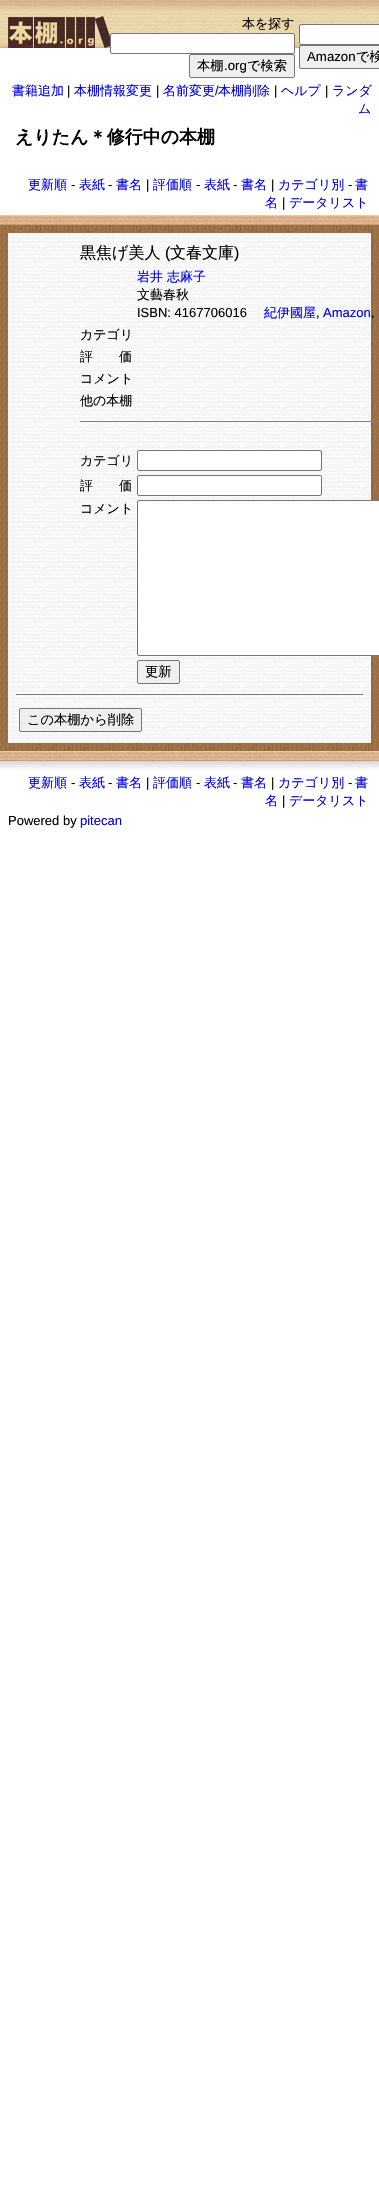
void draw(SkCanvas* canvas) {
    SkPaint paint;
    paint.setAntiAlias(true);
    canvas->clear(0xFFFFFFFF);
    canvas->drawImageRect(SkImages::DeferredFromEncodedData(SkData::MakeFromFileName("img1.png")), SkRect::MakeXYWH(0, 0, 379, 48), SkSamplingOptions());
    SkFont font1(fontMgr->matchFamilyStyle("WenQuanYi Zen Hei", SkFontStyle(500, SkFontStyle::kNormal_Width, SkFontStyle::kUpright_Slant)), 13);
    font1.setSubpixel(true);
    paint.setColor(0xFF000000);
    canvas->drawString("本を探す", 242, 28, font1, paint);
    paint.setColor(0xFFFFFFFF);
    canvas->drawRoundRect(SkRect::MakeXYWH(110.5f, 33.5f, 184, 20), 1.5f, 1.5f, paint);
    paint.setStyle(SkPaint::kStroke_Style);
    paint.setStrokeWidth(1);
    paint.setColor(0xFF767676);
    canvas->drawRoundRect(SkRect::MakeXYWH(110.5f, 33.5f, 184, 20), 1.5f, 1.5f, paint);
    paint.setStyle(SkPaint::kFill_Style);
    paint.setColor(0xFFEFEFEF);
    canvas->drawRoundRect(SkRect::MakeXYWH(189.5f, 54.5f, 105, 23), 1.5f, 1.5f, paint);
    paint.setStyle(SkPaint::kStroke_Style);
    paint.setColor(0xFF767676);
    canvas->drawRoundRect(SkRect::MakeXYWH(189.5f, 54.5f, 105, 23), 1.5f, 1.5f, paint);
    SkFont font2(fontMgr->matchFamilyStyle("WenQuanYi Zen Hei", SkFontStyle(500, SkFontStyle::kNormal_Width, SkFontStyle::kUpright_Slant)), 13.25f);
    font2.setSubpixel(true);
    paint.setStyle(SkPaint::kFill_Style);
    paint.setColor(0xFF000000);
    canvas->drawString("本棚", 197, 70, font2, paint);
    SkFont font3(fontMgr->matchFamilyStyle("Liberation Sans", SkFontStyle::Normal()), 13.25f);
    font3.setSubpixel(true);
    canvas->drawString(".org", 224, 70, font3, paint);
    canvas->drawString("で検索", 247, 70, font2, paint);
    paint.setColor(0xFFFFFFFF);
    canvas->drawRoundRect(SkRect::MakeXYWH(299.5f, 24.5f, 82, 20), 1.5f, 1.5f, paint);
    paint.setStyle(SkPaint::kStroke_Style);
    paint.setColor(0xFF767676);
    canvas->drawRoundRect(SkRect::MakeXYWH(299.5f, 24.5f, 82, 20), 1.5f, 1.5f, paint);
    paint.setStyle(SkPaint::kFill_Style);
    paint.setColor(0xFFEFEFEF);
    canvas->drawRoundRect(SkRect::MakeXYWH(299.5f, 45.5f, 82, 23), 1.5f, 1.5f, paint);
    paint.setStyle(SkPaint::kStroke_Style);
    paint.setColor(0xFF767676);
    canvas->drawRoundRect(SkRect::MakeXYWH(299.5f, 45.5f, 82, 23), 1.5f, 1.5f, paint);
    paint.setStyle(SkPaint::kFill_Style);
    paint.setColor(0xFF000000);
    canvas->drawString("Amazon", 307, 61, font3, paint);
    canvas->drawString("で検", 356, 61, font2, paint);
    paint.setColor(0xFF0000E0);
    canvas->drawString("書籍追加", 12, 95, font1, paint);
    SkFont font4(fontMgr->matchFamilyStyle("Liberation Sans", SkFontStyle::Normal()), 13);
    font4.setSubpixel(true);
    paint.setColor(0xFF000000);
    canvas->drawString("|", 67, 95, font4, paint);
    paint.setColor(0xFF0000E0);
    canvas->drawString("本棚情報変更", 74, 95, font1, paint);
    paint.setColor(0xFF000000);
    canvas->drawString("|", 156, 95, font4, paint);
    paint.setColor(0xFF0000E0);
    canvas->drawString("名前変更", 163, 95, font1, paint);
    canvas->drawString("/", 215, 95, font4, paint);
    canvas->drawString("本棚削除", 218, 95, font1, paint);
    paint.setColor(0xFF000000);
    canvas->drawString("|", 274, 95, font4, paint);
    paint.setColor(0xFF0000E0);
    canvas->drawString("ヘルプ", 281, 95, font1, paint);
    paint.setColor(0xFF000000);
    canvas->drawString("|", 325, 95, font4, paint);
    paint.setColor(0xFF0000E0);
    canvas->drawString("ランダ", 332, 95, font1, paint);
    canvas->drawString("ム", 358, 113, font1, paint);
    SkFont font5(fontMgr->matchFamilyStyle("WenQuanYi Zen Hei", SkFontStyle::Bold()), 18);
    font5.setSubpixel(true);
    paint.setColor(0xFF000000);
    canvas->drawString("えりたん＊修行中の本棚", 15, 143, font5, paint);
    paint.setColor(0xFF0000E0);
    canvas->drawString("更新順", 28, 189, font1, paint);
    paint.setColor(0xFF000000);
    canvas->drawString("-", 71, 189, font4, paint);
    paint.setColor(0xFF0000E0);
    canvas->drawString("表紙", 79, 189, font1, paint);
    paint.setColor(0xFF000000);
    canvas->drawString("-", 108, 189, font4, paint);
    paint.setColor(0xFF0000E0);
    canvas->drawString("書名", 116, 189, font1, paint);
    paint.setColor(0xFF000000);
    canvas->drawString("|", 146, 189, font4, paint);
    paint.setColor(0xFF0000E0);
    canvas->drawString("評価順", 153, 189, font1, paint);
    paint.setColor(0xFF000000);
    canvas->drawString("-", 196, 189, font4, paint);
    paint.setColor(0xFF0000E0);
    canvas->drawString("表紙", 204, 189, font1, paint);
    paint.setColor(0xFF000000);
    canvas->drawString("-", 233, 189, font4, paint);
    paint.setColor(0xFF0000E0);
    canvas->drawString("書名", 241, 189, font1, paint);
    paint.setColor(0xFF000000);
    canvas->drawString("|", 271, 189, font4, paint);
    paint.setColor(0xFF0000E0);
    canvas->drawString("カテゴリ別", 278, 189, font1, paint);
    paint.setColor(0xFF000000);
    canvas->drawString("-", 348, 189, font4, paint);
    paint.setColor(0xFF0000E0);
    canvas->drawString("書", 355, 189, font1, paint);
    canvas->drawString("名", 265, 207, font1, paint);
    paint.setColor(0xFF000000);
    canvas->drawString("|", 282, 207, font4, paint);
    paint.setColor(0xFF0000E0);
    canvas->drawString("データリスト", 289, 207, font1, paint);
    canvas->drawImageRect(SkImages::DeferredFromEncodedData(SkData::MakeFromFileName("img2.png")), SkRect::MakeXYWH(0, 225, 379, 526), SkSamplingOptions());
    canvas->drawImageRect(SkImages::DeferredFromEncodedData(SkData::MakeFromFileName("img3.png")), SkRect::MakeXYWH(0, 215, 379, 10), SkSamplingOptions());
    canvas->drawImageRect(SkImages::DeferredFromEncodedData(SkData::MakeFromFileName("img4.png")), SkRect::MakeXYWH(8, 233, 363, 510), SkSamplingOptions());
    SkFont font6(fontMgr->matchFamilyStyle("WenQuanYi Zen Hei", SkFontStyle(500, SkFontStyle::kNormal_Width, SkFontStyle::kUpright_Slant)), 16);
    font6.setSubpixel(true);
    paint.setColor(0xFF000000);
    canvas->drawString("黒焦げ美人", 80, 258, font6, paint);
    SkFont font7(fontMgr->matchFamilyStyle("Liberation Sans", SkFontStyle::Normal()), 16);
    font7.setSubpixel(true);
    canvas->drawString("(", 165, 258, font7, paint);
    canvas->drawString("文春文庫", 170, 258, font6, paint);
    canvas->drawString(")", 234, 258, font7, paint);
    paint.setColor(0xFF0000E0);
    canvas->drawString("岩井 志麻子", 137, 281, font1, paint);
    paint.setColor(0xFF000000);
    canvas->drawString("文藝春秋", 137, 299, font1, paint);
    canvas->drawString("ISBN: 4167706016", 137, 317, font4, paint);
    paint.setColor(0xFF0000E0);
    canvas->drawString("紀伊國屋", 264, 317, font1, paint);
    paint.setColor(0xFF000000);
    canvas->drawString(",", 316, 317, font4, paint);
    paint.setColor(0xFF0000E0);
    canvas->drawString("Amazon", 323, 317, font4, paint);
    paint.setColor(0xFF000000);
    canvas->drawString(",", 371, 317, font4, paint);
    canvas->drawString("カテゴリ", 80, 339, font1, paint);
    canvas->drawString("評　　価", 80, 361, font1, paint);
    canvas->drawString("コメント", 80, 383, font1, paint);
    canvas->drawString("他の本棚", 80, 405, font1, paint);
    paint.setColor(0xFF808080);
    canvas->drawRect(SkRect::MakeXYWH(80, 421, 299, 1), paint);
    paint.setColor(0xFF000000);
    canvas->drawString("カテゴリ", 80, 465, font1, paint);
    paint.setColor(0xFFFFFFFF);
    canvas->drawRoundRect(SkRect::MakeXYWH(137.5f, 450.5f, 184, 20), 1.5f, 1.5f, paint);
    paint.setStyle(SkPaint::kStroke_Style);
    paint.setColor(0xFF767676);
    canvas->drawRoundRect(SkRect::MakeXYWH(137.5f, 450.5f, 184, 20), 1.5f, 1.5f, paint);
    paint.setStyle(SkPaint::kFill_Style);
    paint.setColor(0xFF000000);
    canvas->drawString("評　　価", 80, 490, font1, paint);
    paint.setColor(0xFFFFFFFF);
    canvas->drawRoundRect(SkRect::MakeXYWH(137.5f, 475.5f, 184, 20), 1.5f, 1.5f, paint);
    paint.setStyle(SkPaint::kStroke_Style);
    paint.setColor(0xFF767676);
    canvas->drawRoundRect(SkRect::MakeXYWH(137.5f, 475.5f, 184, 20), 1.5f, 1.5f, paint);
    paint.setStyle(SkPaint::kFill_Style);
    paint.setColor(0xFF000000);
    canvas->drawString("コメント", 80, 513, font1, paint);
    paint.setColor(0xFFFFFFFF);
    canvas->drawPath(SkPathBuilder().moveTo(139, 500).lineTo(379, 500).lineTo(379, 656).lineTo(139, 656).cubicTo(138, 656, 137, 655, 137, 654).lineTo(137, 502).cubicTo(137, 501, 138, 500, 139, 500).close().detach(), paint);
    paint.setStyle(SkPaint::kStroke_Style);
    paint.setColor(0xFF767676);
    canvas->drawRoundRect(SkRect::MakeXYWH(137.5f, 500.5f, 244, 155), 1.5f, 1.5f, paint);
    paint.setStyle(SkPaint::kFill_Style);
    paint.setColor(0xFFEFEFEF);
    canvas->drawRoundRect(SkRect::MakeXYWH(137.5f, 660.5f, 42, 23), 1.5f, 1.5f, paint);
    paint.setStyle(SkPaint::kStroke_Style);
    paint.setColor(0xFF767676);
    canvas->drawRoundRect(SkRect::MakeXYWH(137.5f, 660.5f, 42, 23), 1.5f, 1.5f, paint);
    paint.setStyle(SkPaint::kFill_Style);
    paint.setColor(0xFF000000);
    canvas->drawString("更新", 145, 676, font2, paint);
    paint.setColor(0xFF808080);
    canvas->drawRect(SkRect::MakeXYWH(16, 694, 347, 1), paint);
    paint.setColor(0xFFEFEFEF);
    canvas->drawRoundRect(SkRect::MakeXYWH(19.5f, 708.5f, 122, 23), 1.5f, 1.5f, paint);
    paint.setStyle(SkPaint::kStroke_Style);
    paint.setColor(0xFF767676);
    canvas->drawRoundRect(SkRect::MakeXYWH(19.5f, 708.5f, 122, 23), 1.5f, 1.5f, paint);
    paint.setStyle(SkPaint::kFill_Style);
    paint.setColor(0xFF000000);
    canvas->drawString("この本棚から削除", 27, 724, font2, paint);
    canvas->drawImageRect(SkImages::DeferredFromEncodedData(SkData::MakeFromFileName("img3.png")), SkRect::MakeXYWH(0, 751, 379, 10), SkSamplingOptions());
    canvas->drawImageRect(SkImages::DeferredFromEncodedData(SkData::MakeFromFileName("img5.png")), SkRect::MakeXYWH(0, 761, 379, 9), SkSamplingOptions());
    paint.setColor(0xFF0000E0);
    canvas->drawString("更新順", 28, 787, font1, paint);
    paint.setColor(0xFF000000);
    canvas->drawString("-", 71, 787, font4, paint);
    paint.setColor(0xFF0000E0);
    canvas->drawString("表紙", 79, 787, font1, paint);
    paint.setColor(0xFF000000);
    canvas->drawString("-", 108, 787, font4, paint);
    paint.setColor(0xFF0000E0);
    canvas->drawString("書名", 116, 787, font1, paint);
    paint.setColor(0xFF000000);
    canvas->drawString("|", 146, 787, font4, paint);
    paint.setColor(0xFF0000E0);
    canvas->drawString("評価順", 153, 787, font1, paint);
    paint.setColor(0xFF000000);
    canvas->drawString("-", 196, 787, font4, paint);
    paint.setColor(0xFF0000E0);
    canvas->drawString("表紙", 204, 787, font1, paint);
    paint.setColor(0xFF000000);
    canvas->drawString("-", 233, 787, font4, paint);
    paint.setColor(0xFF0000E0);
    canvas->drawString("書名", 241, 787, font1, paint);
    paint.setColor(0xFF000000);
    canvas->drawString("|", 271, 787, font4, paint);
    paint.setColor(0xFF0000E0);
    canvas->drawString("カテゴリ別", 278, 787, font1, paint);
    paint.setColor(0xFF000000);
    canvas->drawString("-", 348, 787, font4, paint);
    paint.setColor(0xFF0000E0);
    canvas->drawString("書", 355, 787, font1, paint);
    canvas->drawString("名", 265, 805, font1, paint);
    paint.setColor(0xFF000000);
    canvas->drawString("|", 282, 805, font4, paint);
    paint.setColor(0xFF0000E0);
    canvas->drawString("データリスト", 289, 805, font1, paint);
    paint.setColor(0xFF000000);
    canvas->drawString("Powered by", 8, 825, font4, paint);
    paint.setColor(0xFF0000E0);
    canvas->drawString("pitecan", 80, 825, font4, paint);
}
